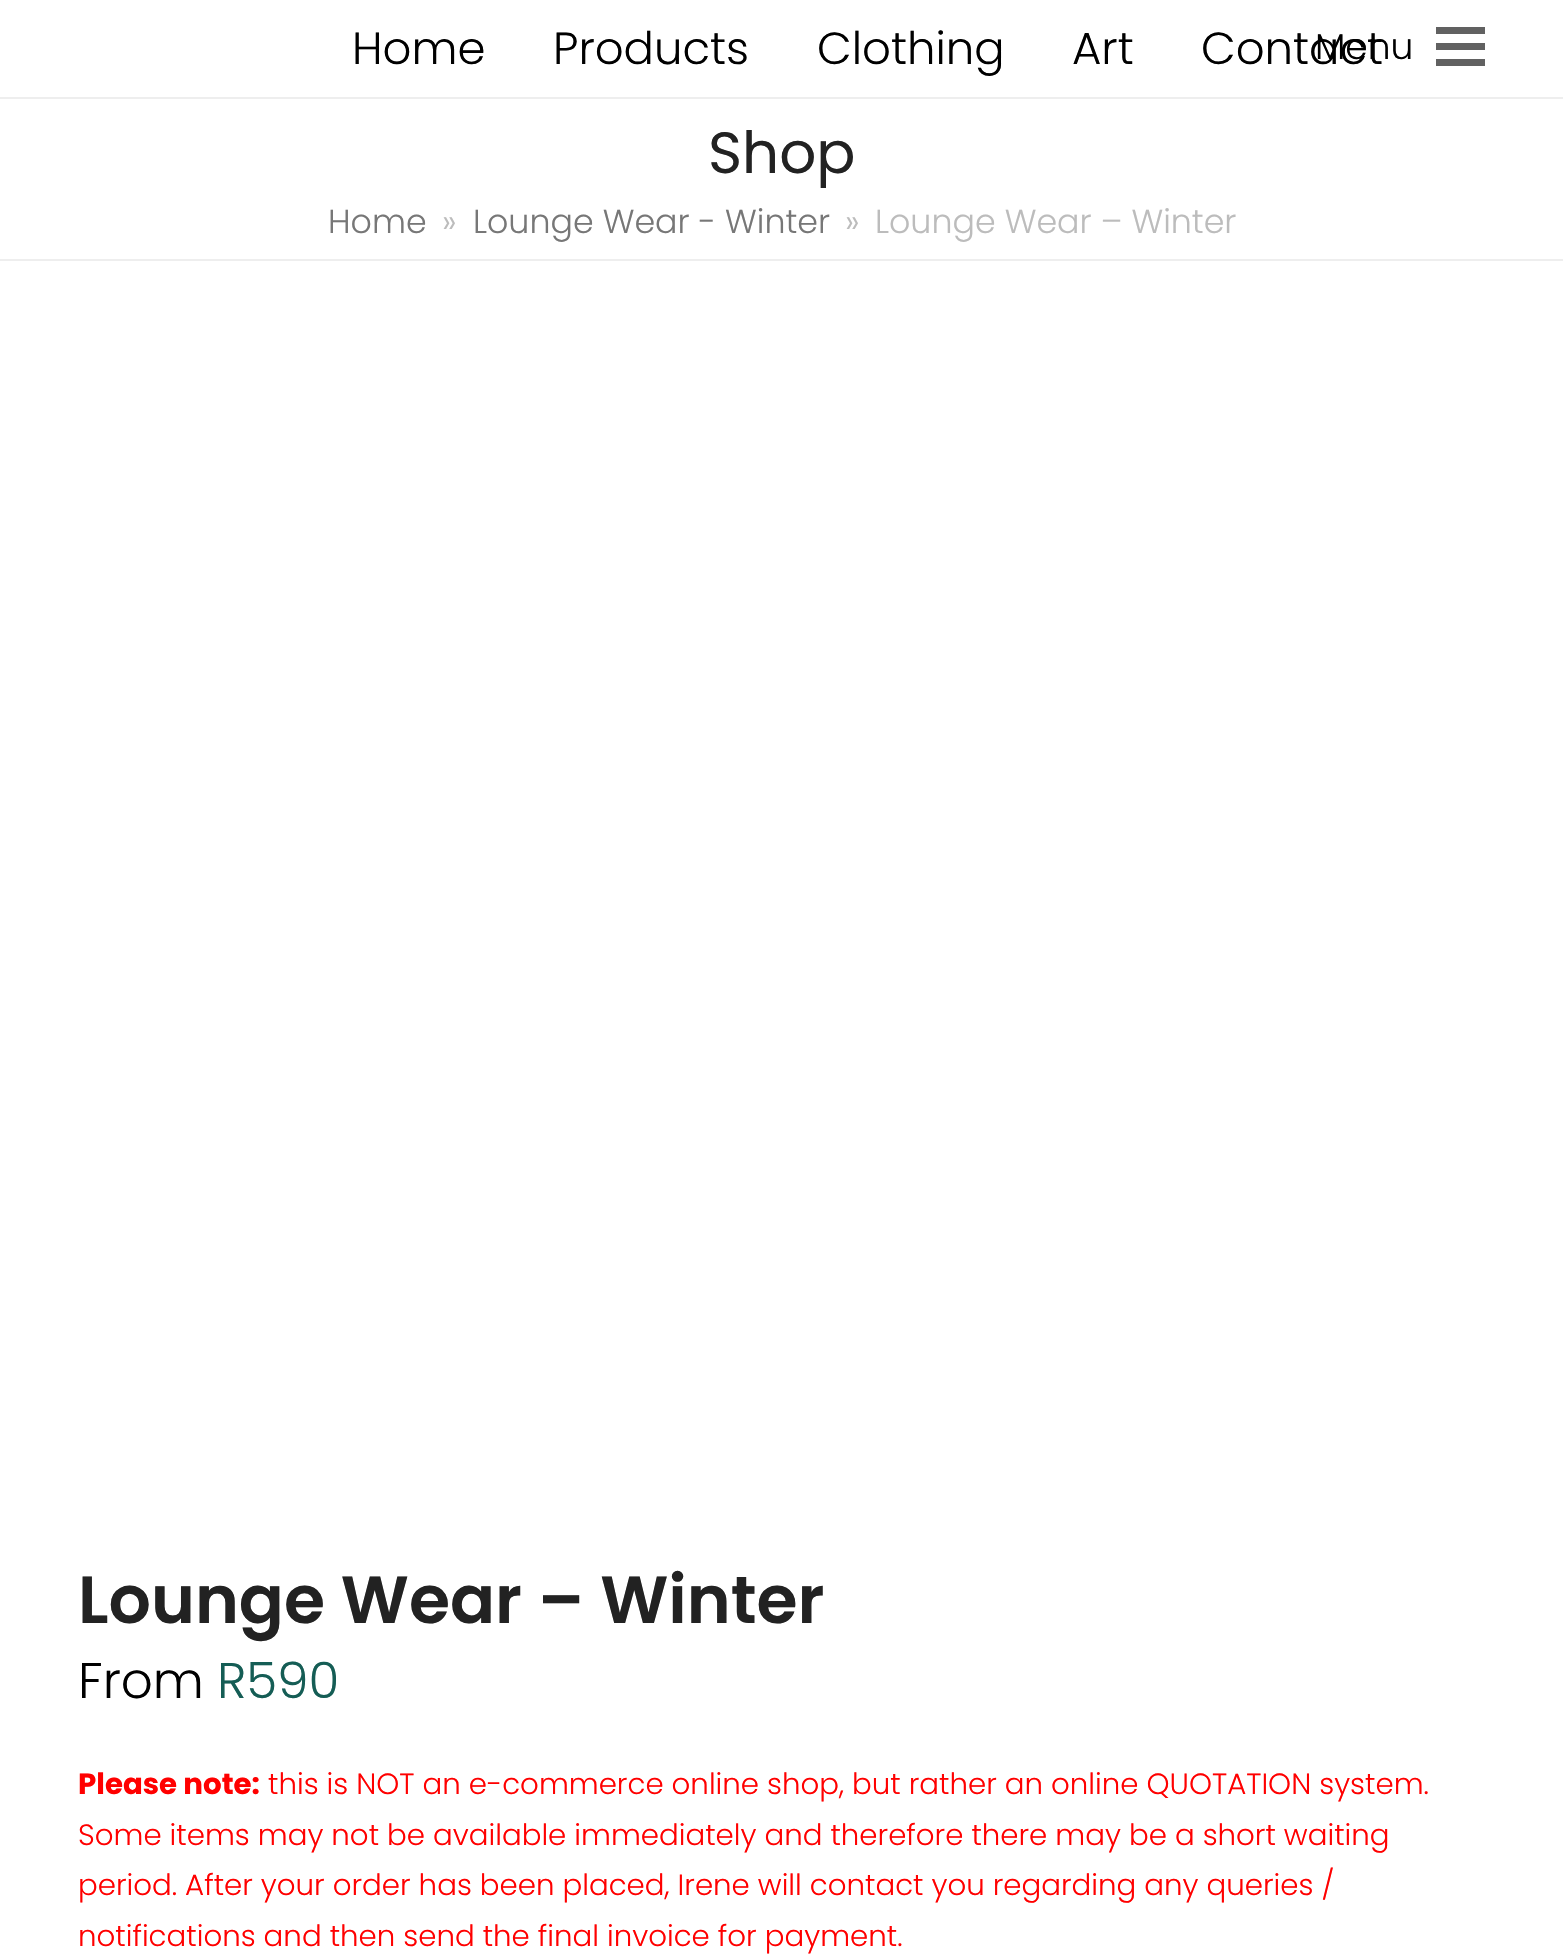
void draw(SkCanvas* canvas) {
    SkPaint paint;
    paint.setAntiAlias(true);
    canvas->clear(0xFFFFFFFF);
    SkFont font1(fontMgr->matchFamilyStyle("Poppins", SkFontStyle(300, SkFontStyle::kNormal_Width, SkFontStyle::kUpright_Slant)), 45);
    font1.setSubpixel(true);
    paint.setColor(0xFF000000);
    canvas->drawString("Home", 352, 64, font1, paint);
    canvas->drawString("Products", 553, 64, font1, paint);
    canvas->drawString("Clothing", 817, 64, font1, paint);
    canvas->drawString("Art", 1072, 64, font1, paint);
    canvas->drawString("Contact", 1201, 64, font1, paint);
    SkFont font2(fontMgr->matchFamilyStyle("Poppins", SkFontStyle(300, SkFontStyle::kNormal_Width, SkFontStyle::kUpright_Slant)), 36);
    font2.setSubpixel(true);
    canvas->drawString("Menu", 1315, 59, font2, paint);
    paint.setColor(0xFF616161);
    canvas->drawRect(SkRect::MakeXYWH(1436, 43, 49, 7), paint);
    canvas->drawRect(SkRect::MakeXYWH(1436, 27, 49, 7), paint);
    canvas->drawRect(SkRect::MakeXYWH(1436, 59, 49, 7), paint);
    paint.setColor(0xFFEEEEEE);
    canvas->drawRect(SkRect::MakeXYWH(0, 97, 1563, 2), paint);
    canvas->drawRect(SkRect::MakeXYWH(0, 259, 1563, 2), paint);
    SkFont font3(fontMgr->matchFamilyStyle("Poppins", SkFontStyle::Normal()), 58);
    font3.setSubpixel(true);
    paint.setColor(0xFF222222);
    canvas->drawString("Shop", 708, 173, font3, paint);
    SkFont font4(fontMgr->matchFamilyStyle("Poppins", SkFontStyle(300, SkFontStyle::kNormal_Width, SkFontStyle::kUpright_Slant)), 33.25f);
    font4.setSubpixel(true);
    paint.setColor(0xFF777777);
    canvas->drawString("Home", 328, 233, font4, paint);
    paint.setColor(0xFFBCBCBC);
    canvas->drawString("»", 442, 233, font4, paint);
    paint.setColor(0xFF777777);
    canvas->drawString("Lounge Wear - Winter", 473, 233, font4, paint);
    paint.setColor(0xFFBCBCBC);
    canvas->drawString("»", 845, 233, font4, paint);
    canvas->drawString("Lounge Wear – Winter", 875, 233, font4, paint);
    SkFont font5(fontMgr->matchFamilyStyle("Poppins", SkFontStyle(600, SkFontStyle::kNormal_Width, SkFontStyle::kUpright_Slant)), 66.5f);
    font5.setSubpixel(true);
    paint.setColor(0xFF222222);
    canvas->drawString("Lounge Wear – Winter", 78, 1623, font5, paint);
    SkFont font6(fontMgr->matchFamilyStyle("Poppins", SkFontStyle(300, SkFontStyle::kNormal_Width, SkFontStyle::kUpright_Slant)), 50);
    font6.setSubpixel(true);
    paint.setColor(0xFF000000);
    canvas->drawString("From", 78, 1698, font6, paint);
    paint.setColor(0xFF155D55);
    canvas->drawString("R590", 217, 1698, font6, paint);
    SkFont font7(fontMgr->matchFamilyStyle("Poppins", SkFontStyle::Bold()), 29.25f);
    font7.setSubpixel(true);
    paint.setColor(0xFFFF0000);
    canvas->drawString("Please note:", 78, 1794, font7, paint);
    SkFont font8(fontMgr->matchFamilyStyle("Poppins", SkFontStyle(300, SkFontStyle::kNormal_Width, SkFontStyle::kUpright_Slant)), 29.25f);
    font8.setSubpixel(true);
    canvas->drawString("this is NOT an e-commerce online shop, but rather an online QUOTATION system.", 268, 1794, font8, paint);
    canvas->drawString("Some items may not be available immediately and therefore there may be a short waiting", 78, 1845, font8, paint);
    canvas->drawString("period. After your order has been placed, Irene will contact you regarding any queries /", 78, 1895, font8, paint);
    canvas->drawString("notifications and then send the final invoice for payment.", 78, 1946, font8, paint);
}
